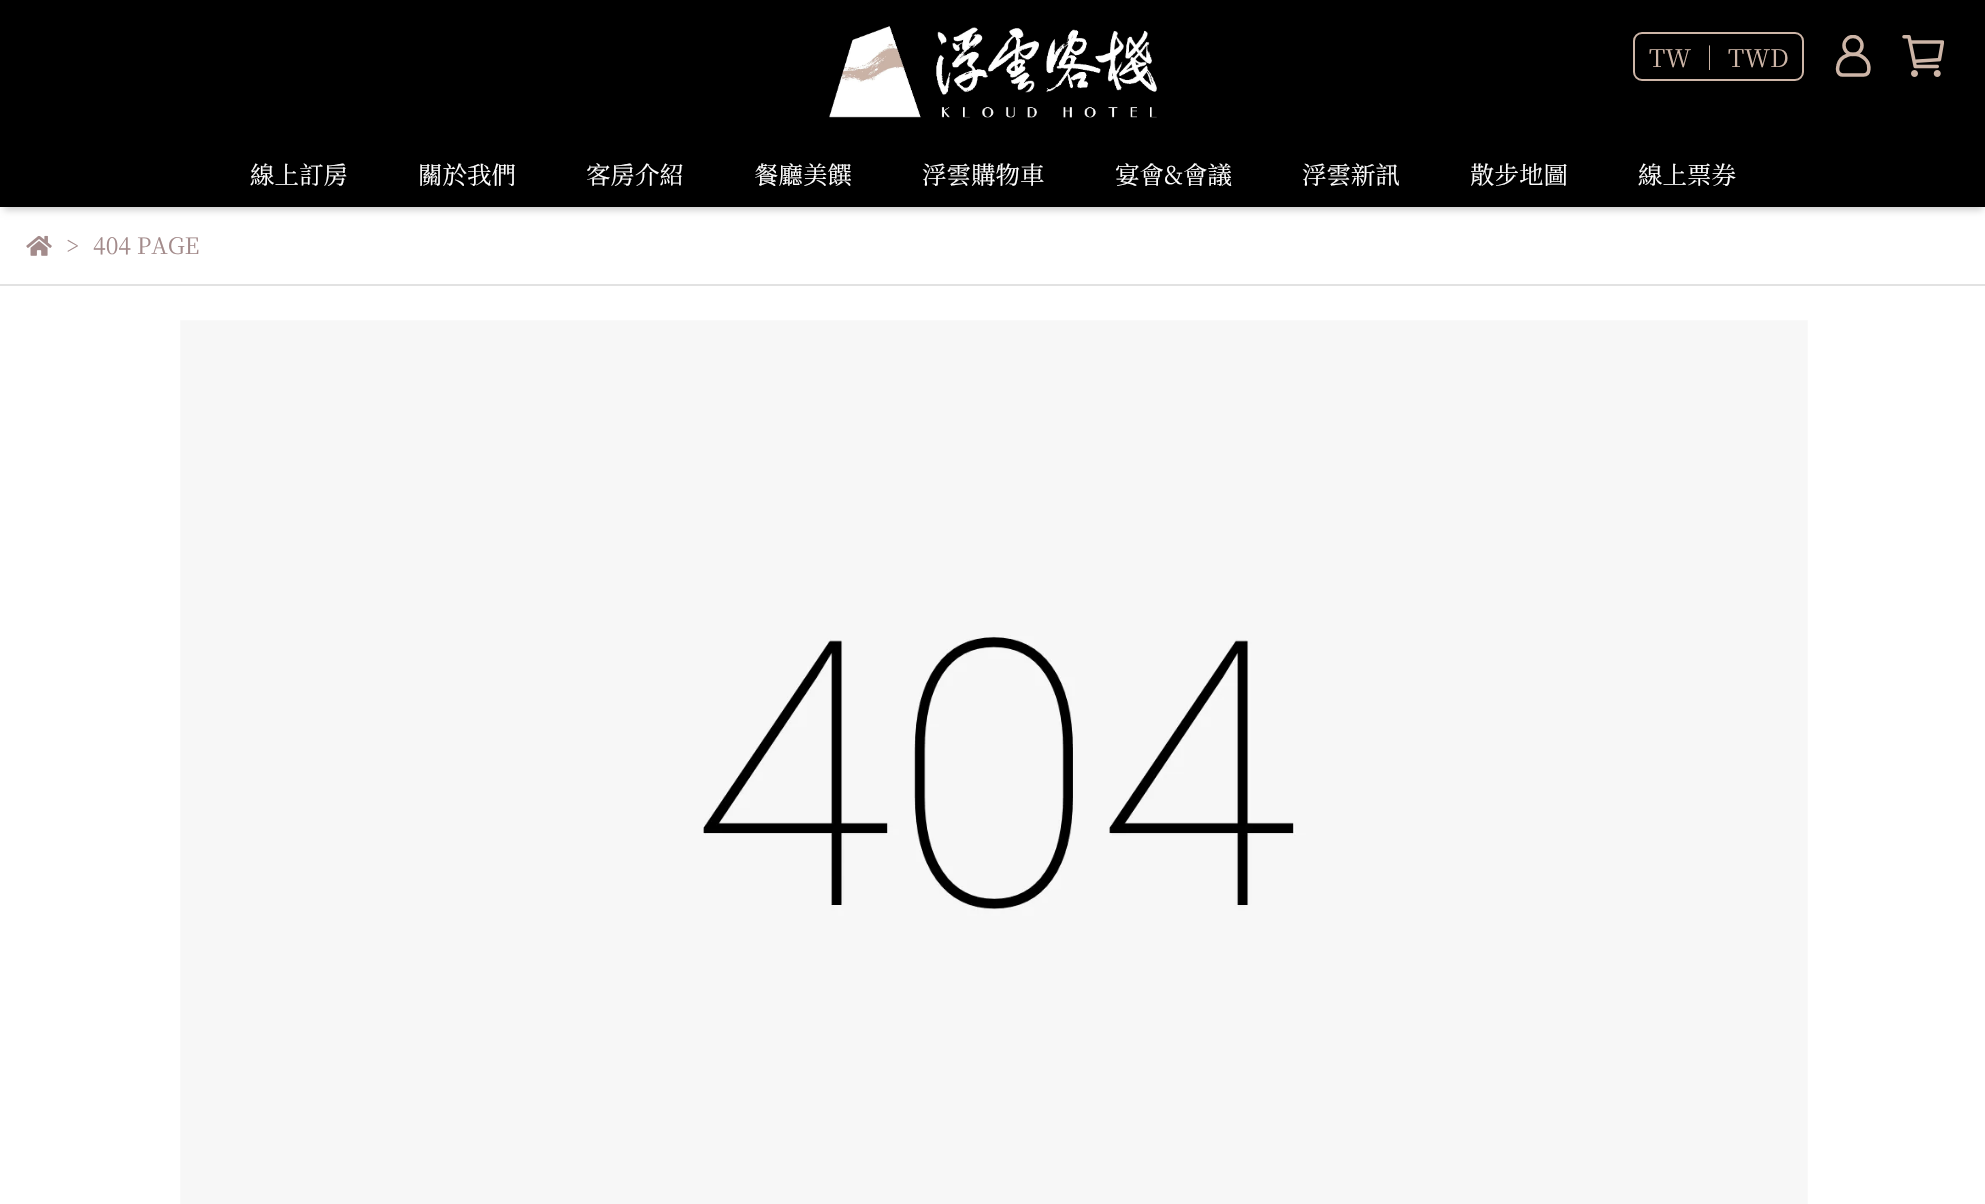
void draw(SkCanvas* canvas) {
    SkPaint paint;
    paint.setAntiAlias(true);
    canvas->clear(0xFFFFFFFF);
    paint.setColor(0xFF000000);
    canvas->drawRect(SkRect::MakeXYWH(0, 0, 1985, 142), paint);
    canvas->drawImageRect(SkImages::DeferredFromEncodedData(SkData::MakeFromFileName("img1.png")), SkRect::MakeXYWH(829, 26, 328, 92), SkSamplingOptions());
    paint.setStyle(SkPaint::kStroke_Style);
    paint.setStrokeWidth(2);
    paint.setColor(0xFFCDB5A7);
    canvas->drawRoundRect(SkRect::MakeXYWH(1634, 33, 169, 47), 8, 8, paint);
    SkFont font1(fontMgr->matchFamilyStyle("Noto Serif TC", SkFontStyle(200, SkFontStyle::kNormal_Width, SkFontStyle::kUpright_Slant)), 24.5f);
    font1.setSubpixel(true);
    paint.setStyle(SkPaint::kFill_Style);
    canvas->drawString("TW ｜ TWD", 1649, 67, font1, paint);
    canvas->save();
    canvas->clipRect(SkRect::MakeXYWH(1832, 35, 42, 42));
    paint.setStyle(SkPaint::kStroke_Style);
    paint.setStrokeWidth(3.5f);
    canvas->drawCircle(1853, 45.5f, 9, paint);
    canvas->restore();
    canvas->drawPath(SkPathBuilder().moveTo(1863, 75).lineTo(1842.5f, 75).cubicTo(1837.5f, 74.5f, 1837, 69.5f, 1838, 65.5f).cubicTo(1839, 61, 1842.5f, 57, 1847, 55.5f).cubicTo(1850, 54, 1853.5f, 54, 1856.5f, 54.5f).cubicTo(1860.5f, 55, 1864, 57.5f, 1866.5f, 60.5f).cubicTo(1869.5f, 64.5f, 1871, 75.5f, 1863, 75).close().detach(), paint);
    canvas->drawImageRect(SkImages::DeferredFromEncodedData(SkData::MakeFromFileName("img2.png")), SkRect::MakeXYWH(1902, 35, 42, 42), SkSamplingOptions());
    paint.setStyle(SkPaint::kFill_Style);
    paint.setColor(0x33000000);
    paint.setMaskFilter(SkMaskFilter::MakeBlur(kNormal_SkBlurStyle, 3.5f));
    canvas->drawRect(SkRect::MakeXYWH(4, 152, 1979, 58), paint);
    paint.setMaskFilter(nullptr);
    paint.setColor(0xFF000000);
    canvas->drawRect(SkRect::MakeXYWH(0, 142, 1985, 65), paint);
    paint.setColor(0xFFFFFFFF);
    canvas->drawString("線上訂房", 250, 184, font1, paint);
    canvas->drawString("關於我們", 418, 184, font1, paint);
    canvas->drawString("客房介紹", 586, 184, font1, paint);
    canvas->drawString("餐廳美饌", 754, 184, font1, paint);
    canvas->drawString("浮雲購物車", 922, 184, font1, paint);
    canvas->drawString("宴會&會議", 1115, 184, font1, paint);
    canvas->drawString("浮雲新訊", 1302, 184, font1, paint);
    canvas->drawString("散步地圖", 1470, 184, font1, paint);
    canvas->drawString("線上票券", 1638, 184, font1, paint);
    paint.setColor(0xFFE2E2E2);
    canvas->drawRect(SkRect::MakeXYWH(0, 284, 1985, 2), paint);
    canvas->drawImageRect(SkImages::DeferredFromEncodedData(SkData::MakeFromFileName("img3.png")), SkRect::MakeXYWH(26, 235, 26, 21), SkSamplingOptions());
    SkFont font2(fontMgr->matchFamilyStyle("Noto Serif TC", SkFontStyle(200, SkFontStyle::kNormal_Width, SkFontStyle::kUpright_Slant)), 22.75f);
    font2.setSubpixel(true);
    paint.setColor(0xFFA38B8B);
    canvas->drawString(">", 66, 254, font2, paint);
    canvas->drawString("404 PAGE", 93, 254, font2, paint);
    canvas->drawImageRect(SkImages::DeferredFromEncodedData(SkData::MakeFromFileName("img4.png")), SkRect::MakeXYWH(180, 320, 1628, 884), SkSamplingOptions());
}
